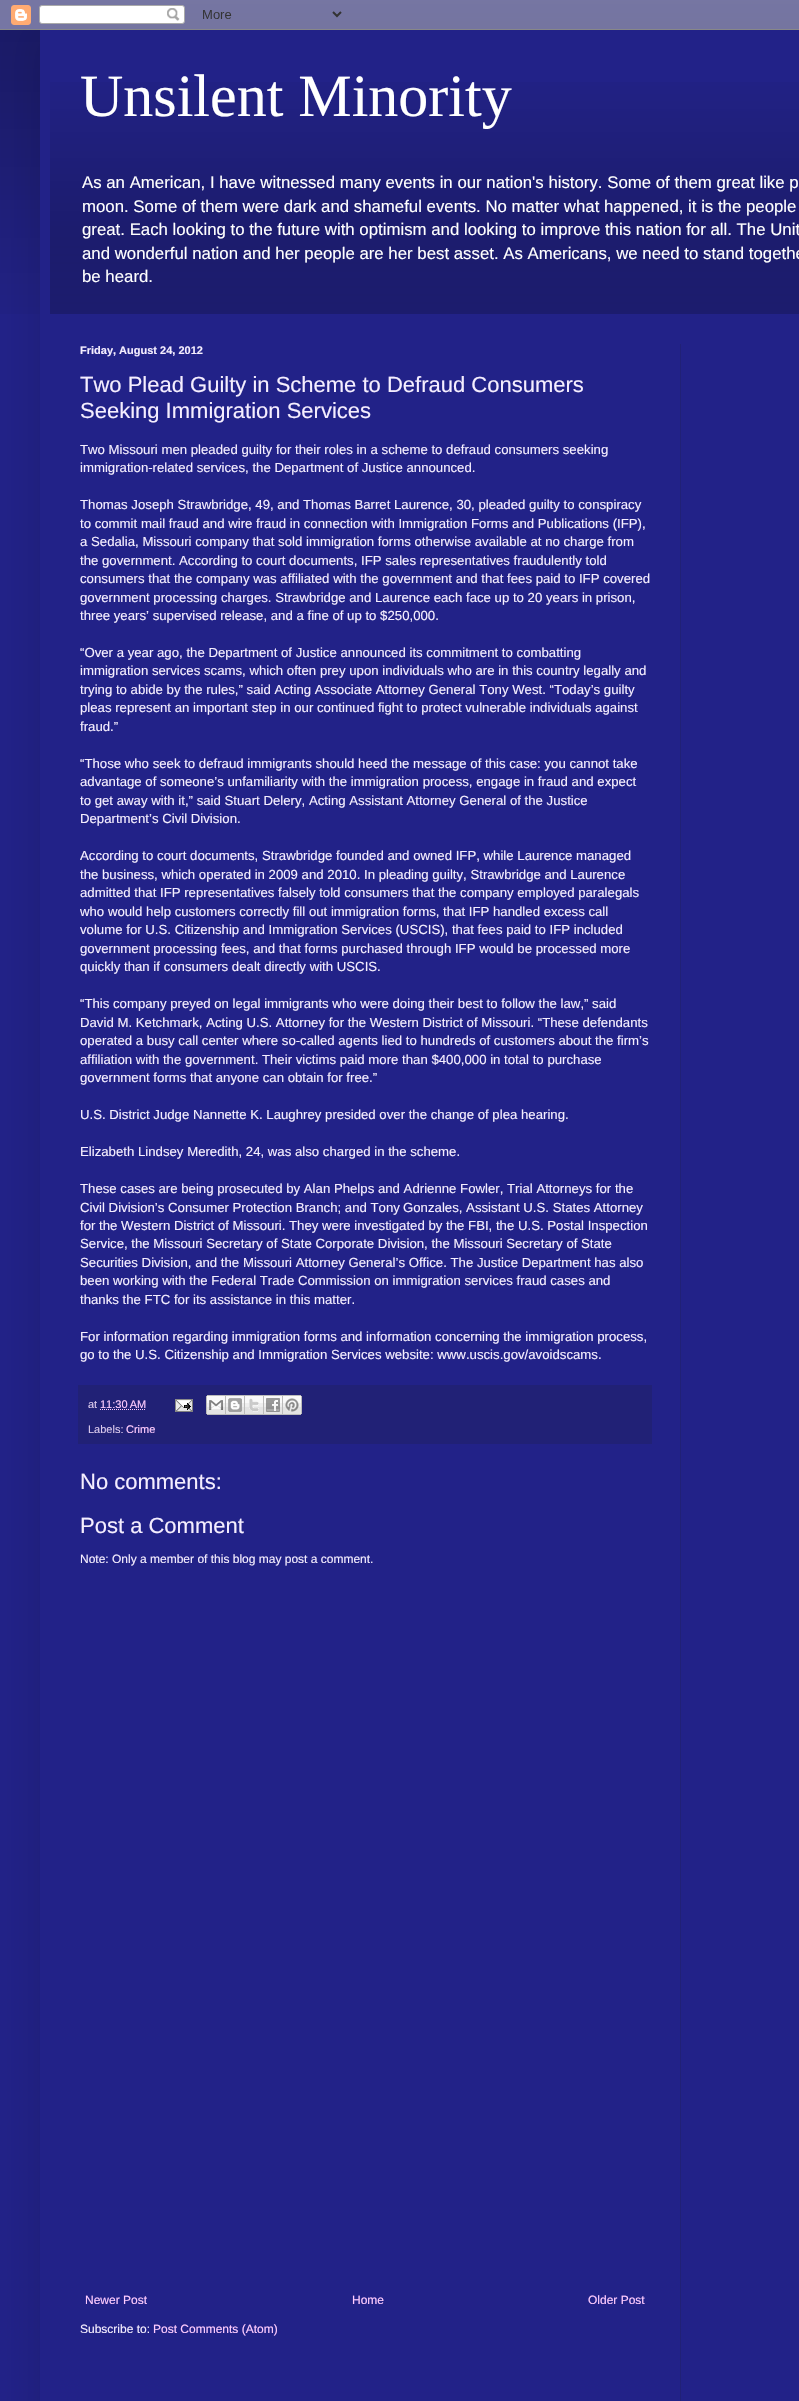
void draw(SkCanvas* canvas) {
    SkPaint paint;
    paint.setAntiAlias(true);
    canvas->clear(0xFF222288);
    canvas->drawImageRect(SkImages::DeferredFromEncodedData(SkData::MakeFromFileName("img1.png")), SkRect::MakeXYWH(0, 0, 799, 314), SkSamplingOptions());
    paint.setColor(0x26000000);
    paint.setMaskFilter(SkMaskFilter::MakeBlur(kNormal_SkBlurStyle, 20));
    canvas->drawRect(SkRect::MakeXYWH(40, 30, 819, 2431), paint);
    paint.setMaskFilter(nullptr);
    canvas->drawImageRect(SkImages::DeferredFromEncodedData(SkData::MakeFromFileName("img2.png")), SkRect::MakeXYWH(0, 0, 799, 30), SkSamplingOptions());
    paint.setColor(0xFF222288);
    canvas->drawRect(SkRect::MakeXYWH(40, 30, 759, 2371), paint);
    canvas->drawImageRect(SkImages::DeferredFromEncodedData(SkData::MakeFromFileName("img3.png")), SkRect::MakeXYWH(50, 82, 749, 232), SkSamplingOptions());
    SkFont font1(fontMgr->matchFamilyStyle("Liberation Serif", SkFontStyle::Normal()), 60);
    font1.setSubpixel(true);
    paint.setColor(0xFFFFFFFF);
    canvas->drawString("Unsilent Minority", 80, 116, font1, paint);
    SkFont font2(fontMgr->matchFamilyStyle("Liberation Sans", SkFontStyle::Normal()), 16.8f);
    font2.setSubpixel(true);
    canvas->drawString("As an American, I have witnessed many events in our nation's history. Some of them great like p", 82, 188, font2, paint);
    canvas->drawString("moon. Some of them were dark and shameful events. No matter what happened, it is the people", 82, 212, font2, paint);
    canvas->drawString("great. Each looking to the future with optimism and looking to improve this nation for all. The Unit", 82, 235, font2, paint);
    canvas->drawString("and wonderful nation and her people are her best asset. As Americans, we need to stand togethe", 82, 259, font2, paint);
    canvas->drawString("be heard.", 82, 282, font2, paint);
    SkFont font3(fontMgr->matchFamilyStyle("Liberation Sans", SkFontStyle::Bold()), 11);
    font3.setSubpixel(true);
    paint.setColor(0xFFF5EEFF);
    canvas->drawString("Friday, August 24, 2012", 80, 354, font3, paint);
    SkFont font4(fontMgr->matchFamilyStyle("Liberation Sans", SkFontStyle::Normal()), 22);
    font4.setSubpixel(true);
    canvas->drawString("Two Plead Guilty in Scheme to Defraud Consumers", 80, 392, font4, paint);
    canvas->drawString("Seeking Immigration Services", 80, 418, font4, paint);
    SkFont font5(fontMgr->matchFamilyStyle("Liberation Sans", SkFontStyle::Normal()), 13.2f);
    font5.setSubpixel(true);
    canvas->drawString("Two Missouri men pleaded guilty for their roles in a scheme to defraud consumers seeking", 80, 454, font5, paint);
    canvas->drawString("immigration-related services, the Department of Justice announced.", 80, 472, font5, paint);
    canvas->drawString("Thomas Joseph Strawbridge, 49, and Thomas Barret Laurence, 30, pleaded guilty to conspiracy", 80, 509, font5, paint);
    canvas->drawString("to commit mail fraud and wire fraud in connection with Immigration Forms and Publications (IFP),", 80, 528, font5, paint);
    canvas->drawString("a Sedalia, Missouri company that sold immigration forms otherwise available at no charge from", 80, 546, font5, paint);
    canvas->drawString("the government. According to court documents, IFP sales representatives fraudulently told", 80, 565, font5, paint);
    canvas->drawString("consumers that the company was affiliated with the government and that fees paid to IFP covered", 80, 583, font5, paint);
    canvas->drawString("government processing charges. Strawbridge and Laurence each face up to 20 years in prison,", 80, 602, font5, paint);
    canvas->drawString("three years’ supervised release, and a fine of up to $250,000.", 80, 620, font5, paint);
    canvas->drawString("“Over a year ago, the Department of Justice announced its commitment to combatting", 80, 657, font5, paint);
    canvas->drawString("immigration services scams, which often prey upon individuals who are in this country legally and", 80, 675, font5, paint);
    canvas->drawString("trying to abide by the rules,” said Acting Associate Attorney General Tony West. “Today’s guilty", 80, 694, font5, paint);
    canvas->drawString("pleas represent an important step in our continued fight to protect vulnerable individuals against", 80, 712, font5, paint);
    canvas->drawString("fraud.”", 80, 731, font5, paint);
    canvas->drawString("“Those who seek to defraud immigrants should heed the message of this case: you cannot take", 80, 768, font5, paint);
    canvas->drawString("advantage of someone’s unfamiliarity with the immigration process, engage in fraud and expect", 80, 786, font5, paint);
    canvas->drawString("to get away with it,” said Stuart Delery, Acting Assistant Attorney General of the Justice", 80, 805, font5, paint);
    canvas->drawString("Department’s Civil Division.", 80, 823, font5, paint);
    canvas->drawString("According to court documents, Strawbridge founded and owned IFP, while Laurence managed", 80, 860, font5, paint);
    canvas->drawString("the business, which operated in 2009 and 2010. In pleading guilty, Strawbridge and Laurence", 80, 879, font5, paint);
    canvas->drawString("admitted that IFP representatives falsely told consumers that the company employed paralegals", 80, 897, font5, paint);
    canvas->drawString("who would help customers correctly fill out immigration forms, that IFP handled excess call", 80, 916, font5, paint);
    canvas->drawString("volume for U.S. Citizenship and Immigration Services (USCIS), that fees paid to IFP included", 80, 934, font5, paint);
    canvas->drawString("government processing fees, and that forms purchased through IFP would be processed more", 80, 953, font5, paint);
    canvas->drawString("quickly than if consumers dealt directly with USCIS.", 80, 971, font5, paint);
    canvas->drawString("“This company preyed on legal immigrants who were doing their best to follow the law,” said", 80, 1008, font5, paint);
    canvas->drawString("David M. Ketchmark, Acting U.S. Attorney for the Western District of Missouri. “These defendants", 80, 1027, font5, paint);
    canvas->drawString("operated a busy call center where so-called agents lied to hundreds of customers about the firm’s", 80, 1045, font5, paint);
    canvas->drawString("affiliation with the government. Their victims paid more than $400,000 in total to purchase", 80, 1064, font5, paint);
    canvas->drawString("government forms that anyone can obtain for free.”", 80, 1082, font5, paint);
    canvas->drawString("U.S. District Judge Nannette K. Laughrey presided over the change of plea hearing.", 80, 1119, font5, paint);
    canvas->drawString("Elizabeth Lindsey Meredith, 24, was also charged in the scheme.", 80, 1156, font5, paint);
    canvas->drawString("These cases are being prosecuted by Alan Phelps and Adrienne Fowler, Trial Attorneys for the", 80, 1193, font5, paint);
    canvas->drawString("Civil Division’s Consumer Protection Branch; and Tony", 80, 1212, font5, paint);
    canvas->drawString("Gonzales, Assistant U.S. States Attorney", 403, 1212, font5, paint);
    canvas->drawString("for the Western District of Missouri. They were investigated by the FBI, the U.S. Postal Inspection", 80, 1230, font5, paint);
    canvas->drawString("Service, the Missouri Secretary of State Corporate Division, the Missouri Secretary of State", 80, 1248, font5, paint);
    canvas->drawString("Securities Division, and the Missouri Attorney General’s Office. The Justice Department has also", 80, 1267, font5, paint);
    canvas->drawString("been working with the Federal Trade Commission on immigration services fraud cases and", 80, 1285, font5, paint);
    canvas->drawString("thanks the FTC for its assistance in this matter.", 80, 1304, font5, paint);
    canvas->drawString("For information regarding immigration forms and information concerning the immigration process,", 80, 1341, font5, paint);
    canvas->drawString("go to the U.S. Citizenship and Immigration Services website: www.uscis.gov/avoidscams.", 80, 1359, font5, paint);
    paint.setColor(0xFF212176);
    canvas->drawRect(SkRect::MakeXYWH(78, 1385, 574, 59), paint);
    SkFont font6(fontMgr->matchFamilyStyle("Liberation Sans", SkFontStyle::Normal()), 11);
    font6.setSubpixel(true);
    paint.setColor(0xFFDDCCEE);
    canvas->drawString("at", 88, 1408, font6, paint);
    paint.setColor(0xFFFFCCFF);
    canvas->drawString("11:30 AM", 100, 1408, font6, paint);
    paint.setStyle(SkPaint::kStroke_Style);
    paint.setStrokeWidth(1);
    paint.setPathEffect(SkDashPathEffect::Make({{1, 1}}, 0));
    canvas->drawPath(SkPathBuilder().moveTo(100, 1409.5f).lineTo(145.5f, 1409.5f).detach(), paint);
    paint.setPathEffect(nullptr);
    canvas->drawImageRect(SkImages::DeferredFromEncodedData(SkData::MakeFromFileName("img4.png")), SkRect::MakeXYWH(175, 1399, 18, 13), SkSamplingOptions());
    canvas->drawImageRect(SkImages::DeferredFromEncodedData(SkData::MakeFromFileName("img5.png")), SkRect::MakeXYWH(206, 1395, 20, 20), SkSamplingOptions());
    canvas->drawImageRect(SkImages::DeferredFromEncodedData(SkData::MakeFromFileName("img6.png")), SkRect::MakeXYWH(226, 1395, 19, 20), SkSamplingOptions());
    canvas->drawImageRect(SkImages::DeferredFromEncodedData(SkData::MakeFromFileName("img7.png")), SkRect::MakeXYWH(245, 1395, 19, 20), SkSamplingOptions());
    canvas->drawImageRect(SkImages::DeferredFromEncodedData(SkData::MakeFromFileName("img8.png")), SkRect::MakeXYWH(264, 1395, 19, 20), SkSamplingOptions());
    canvas->drawImageRect(SkImages::DeferredFromEncodedData(SkData::MakeFromFileName("img9.png")), SkRect::MakeXYWH(283, 1395, 19, 20), SkSamplingOptions());
    paint.setStyle(SkPaint::kFill_Style);
    paint.setColor(0xFFDDCCEE);
    canvas->drawString("Labels:", 88, 1433, font6, paint);
    paint.setColor(0xFFFFCCFF);
    canvas->drawString("Crime", 126, 1433, font6, paint);
    paint.setColor(0xFFF5EEFF);
    canvas->drawString("No comments:", 80, 1489, font4, paint);
    canvas->drawString("Post a Comment", 80, 1533, font4, paint);
    SkFont font7(fontMgr->matchFamilyStyle("Liberation Sans", SkFontStyle::Normal()), 12);
    font7.setSubpixel(true);
    canvas->drawString("Note: Only a member of this blog may post a comment.", 80, 1563, font7, paint);
    paint.setColor(0xFFFFCCFF);
    canvas->drawString("Newer Post", 85, 2304, font7, paint);
    canvas->drawString("Home", 352, 2304, font7, paint);
    canvas->drawString("Older Post", 588, 2304, font7, paint);
    paint.setColor(0xFFF5EEFF);
    canvas->drawString("Subscribe to:", 80, 2333, font7, paint);
    paint.setColor(0xFFFFCCFF);
    canvas->drawString("Post Comments (Atom)", 153, 2333, font7, paint);
    paint.setColor(0xFF212176);
    canvas->drawRect(SkRect::MakeXYWH(680, 344, 1, 2057), paint);
}
